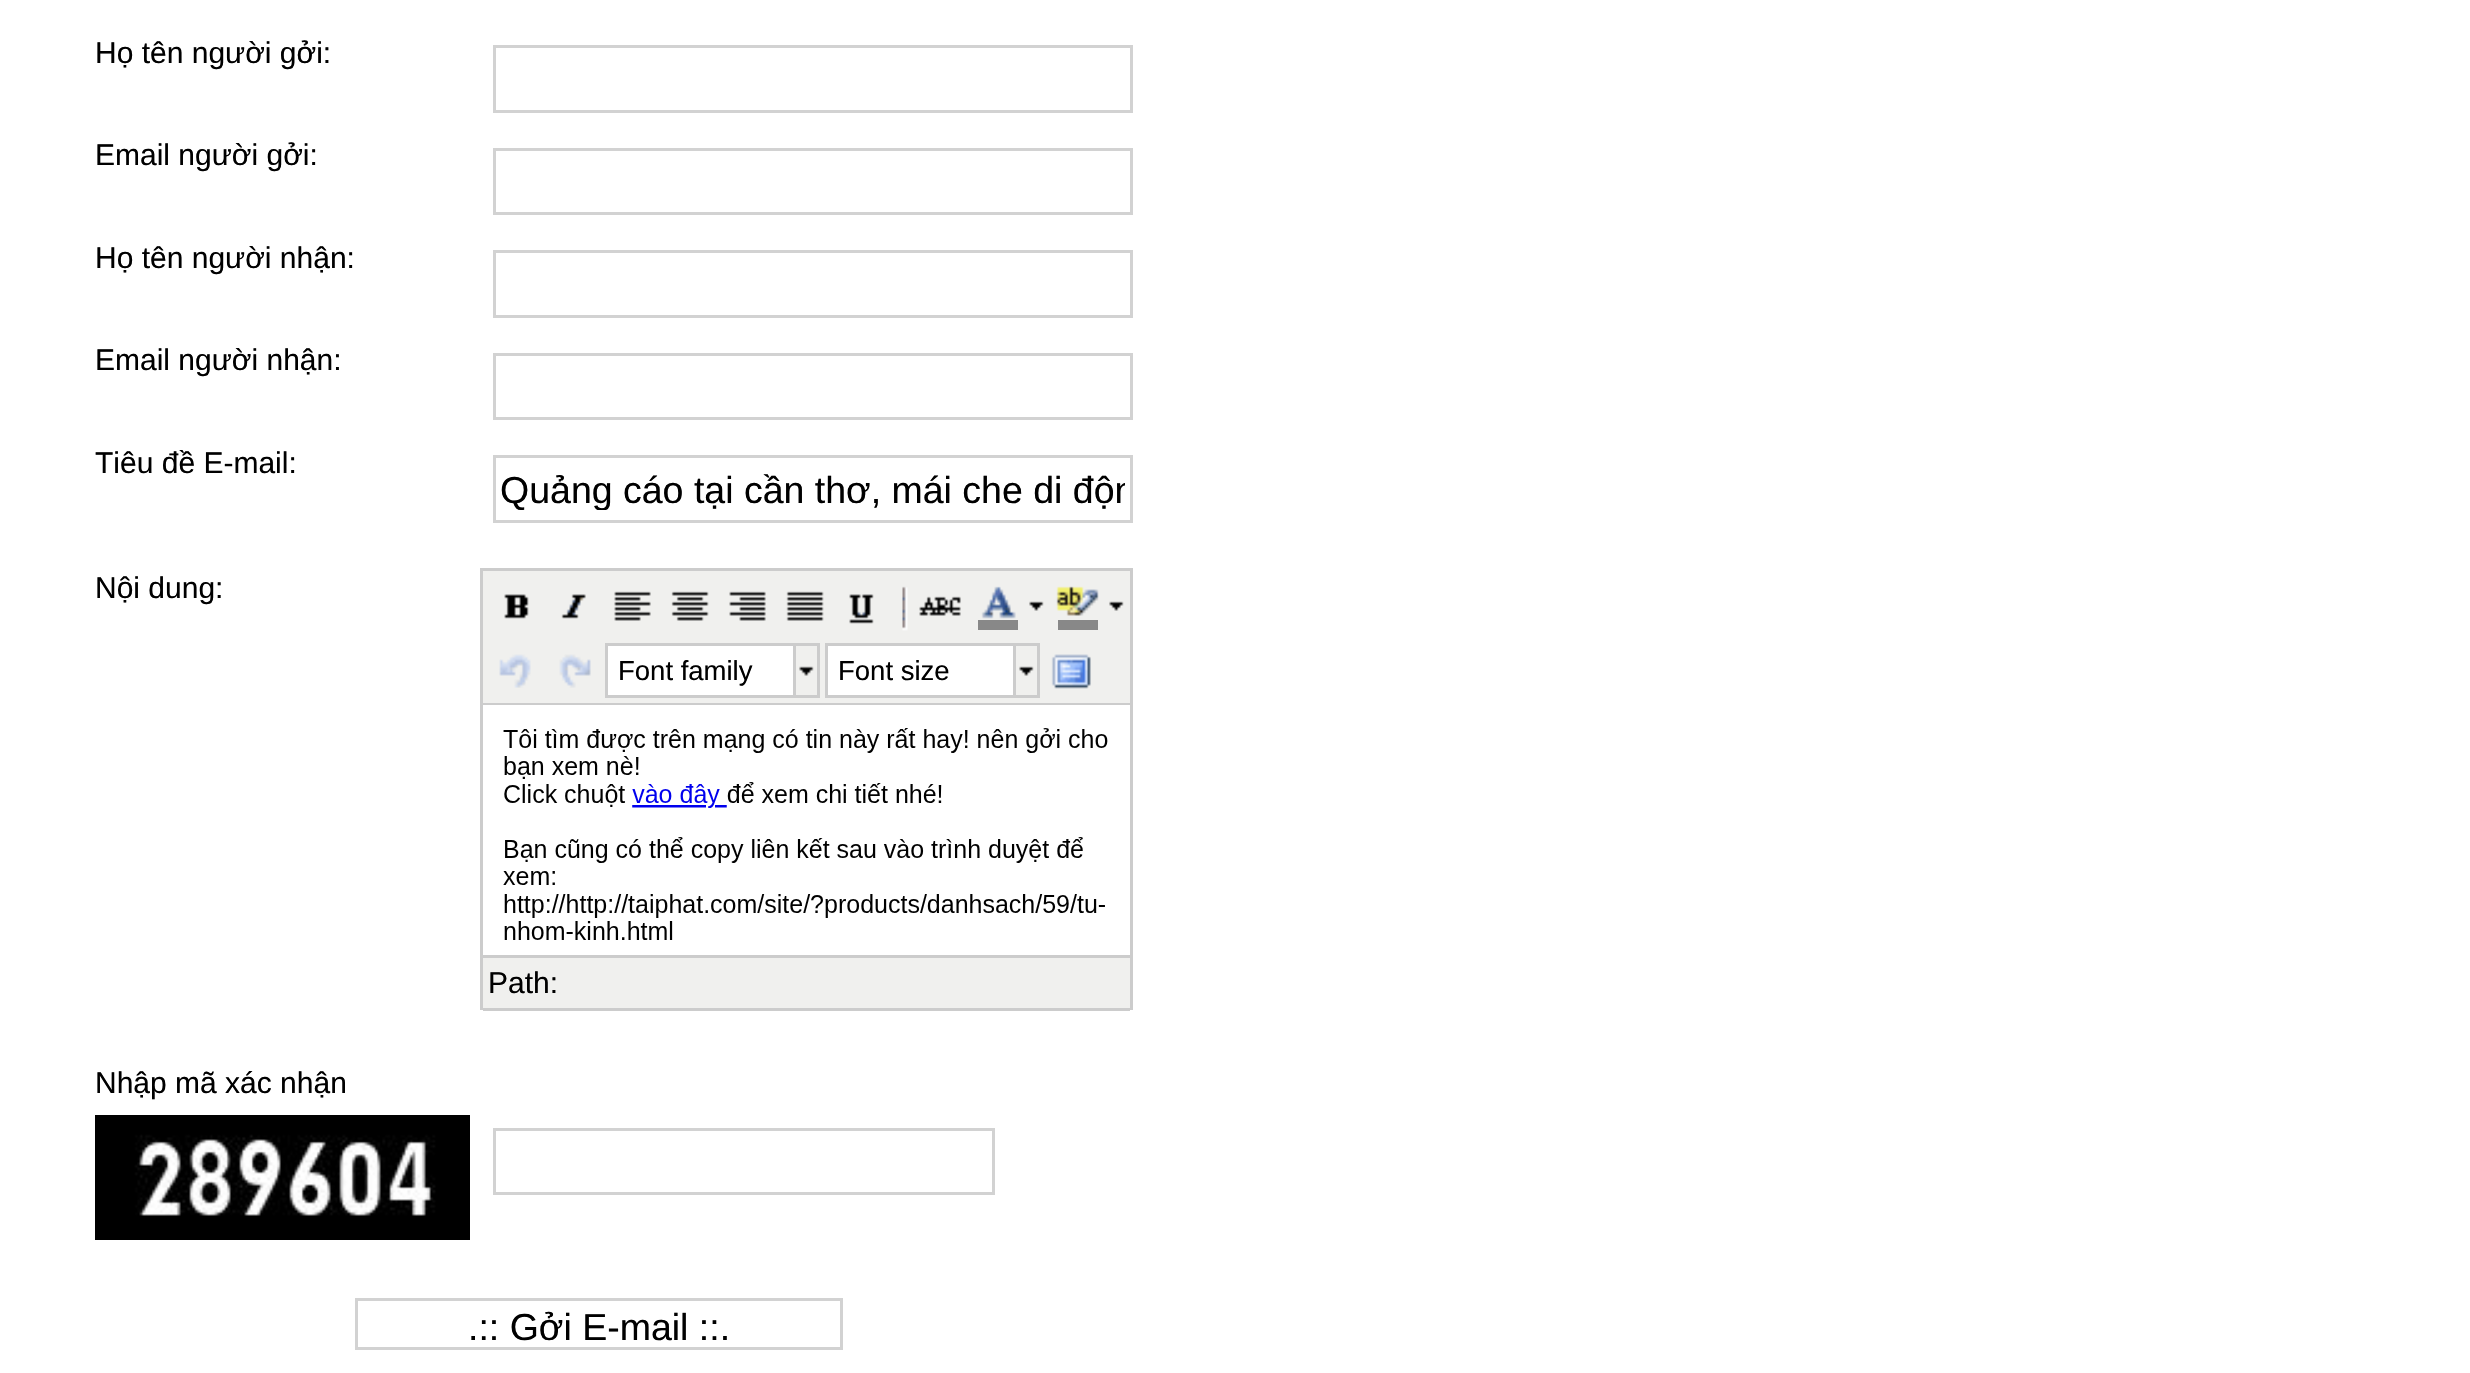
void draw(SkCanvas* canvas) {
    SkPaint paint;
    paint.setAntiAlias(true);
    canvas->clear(0xFFFFFFFF);
    SkFont font1(fontMgr->matchFamilyStyle("Liberation Sans", SkFontStyle::Normal()), 30);
    font1.setSubpixel(true);
    paint.setColor(0xFF000000);
    canvas->drawString("Họ tên người gởi:", 95, 63, font1, paint);
    paint.setStyle(SkPaint::kStroke_Style);
    paint.setStrokeWidth(3);
    paint.setColor(0xFFD2D2D2);
    canvas->drawRect(SkRect::MakeXYWH(494.5f, 46.5f, 637, 65), paint);
    paint.setStyle(SkPaint::kFill_Style);
    paint.setColor(0xFF000000);
    canvas->drawString("Email người gởi:", 95, 165, font1, paint);
    paint.setStyle(SkPaint::kStroke_Style);
    paint.setColor(0xFFD2D2D2);
    canvas->drawRect(SkRect::MakeXYWH(494.5f, 149.5f, 637, 64), paint);
    paint.setStyle(SkPaint::kFill_Style);
    paint.setColor(0xFF000000);
    canvas->drawString("Họ tên người nhận:", 95, 268, font1, paint);
    paint.setStyle(SkPaint::kStroke_Style);
    paint.setColor(0xFFD2D2D2);
    canvas->drawRect(SkRect::MakeXYWH(494.5f, 251.5f, 637, 65), paint);
    paint.setStyle(SkPaint::kFill_Style);
    paint.setColor(0xFF000000);
    canvas->drawString("Email người nhận:", 95, 370, font1, paint);
    paint.setStyle(SkPaint::kStroke_Style);
    paint.setColor(0xFFD2D2D2);
    canvas->drawRect(SkRect::MakeXYWH(494.5f, 354.5f, 637, 64), paint);
    paint.setStyle(SkPaint::kFill_Style);
    paint.setColor(0xFF000000);
    canvas->drawString("Tiêu đề E-mail:", 95, 473, font1, paint);
    paint.setStyle(SkPaint::kStroke_Style);
    paint.setColor(0xFFD2D2D2);
    canvas->drawRect(SkRect::MakeXYWH(494.5f, 456.5f, 637, 65), paint);
    canvas->save();
    canvas->clipRect(SkRect::MakeXYWH(500, 468, 625, 42));
    SkFont font2(fontMgr->matchFamilyStyle("Liberation Sans", SkFontStyle::Normal()), 37.5f);
    font2.setSubpixel(true);
    paint.setStyle(SkPaint::kFill_Style);
    paint.setColor(0xFF000000);
    canvas->drawString("Quảng cáo tại cần thơ, mái che di độn", 500, 503, font2, paint);
    canvas->restore();
    canvas->drawString("Nội dung:", 95, 598, font1, paint);
    paint.setColor(0xFFF0F0EE);
    canvas->drawRect(SkRect::MakeXYWH(483, 571, 647, 437), paint);
    paint.setColor(0xFFCCCCCC);
    canvas->drawRect(SkRect::MakeXYWH(1130, 568, 3, 442), paint);
    canvas->drawRect(SkRect::MakeXYWH(480, 568, 3, 442), paint);
    canvas->drawRect(SkRect::MakeXYWH(483, 568, 647, 3), paint);
    canvas->drawImageRect(SkImages::DeferredFromEncodedData(SkData::MakeFromFileName("img1.png")), SkRect::MakeXYWH(504, 594, 25, 25), SkSamplingOptions());
    canvas->drawImageRect(SkImages::DeferredFromEncodedData(SkData::MakeFromFileName("img2.png")), SkRect::MakeXYWH(561, 594, 25, 25), SkSamplingOptions());
    canvas->drawImageRect(SkImages::DeferredFromEncodedData(SkData::MakeFromFileName("img3.png")), SkRect::MakeXYWH(614, 591, 37, 30), SkSamplingOptions());
    canvas->drawImageRect(SkImages::DeferredFromEncodedData(SkData::MakeFromFileName("img4.png")), SkRect::MakeXYWH(671, 591, 38, 30), SkSamplingOptions());
    canvas->drawImageRect(SkImages::DeferredFromEncodedData(SkData::MakeFromFileName("img5.png")), SkRect::MakeXYWH(729, 591, 37, 30), SkSamplingOptions());
    canvas->drawImageRect(SkImages::DeferredFromEncodedData(SkData::MakeFromFileName("img6.png")), SkRect::MakeXYWH(786, 591, 38, 30), SkSamplingOptions());
    canvas->drawImageRect(SkImages::DeferredFromEncodedData(SkData::MakeFromFileName("img7.png")), SkRect::MakeXYWH(849, 594, 25, 30), SkSamplingOptions());
    canvas->drawImageRect(SkImages::DeferredFromEncodedData(SkData::MakeFromFileName("img8.png")), SkRect::MakeXYWH(902, 586, 6, 45), SkSamplingOptions());
    canvas->drawImageRect(SkImages::DeferredFromEncodedData(SkData::MakeFromFileName("img9.png")), SkRect::MakeXYWH(919, 596, 42, 20), SkSamplingOptions());
    canvas->drawImageRect(SkImages::DeferredFromEncodedData(SkData::MakeFromFileName("img10.png")), SkRect::MakeXYWH(981, 586, 35, 33), SkSamplingOptions());
    paint.setColor(0xFF888888);
    canvas->drawRect(SkRect::MakeXYWH(978, 620, 40, 10), paint);
    canvas->drawImageRect(SkImages::DeferredFromEncodedData(SkData::MakeFromFileName("img11.png")), SkRect::MakeXYWH(1029, 601, 15, 10), SkSamplingOptions());
    canvas->drawImageRect(SkImages::DeferredFromEncodedData(SkData::MakeFromFileName("img12.png")), SkRect::MakeXYWH(1056, 586, 43, 30), SkSamplingOptions());
    canvas->drawRect(SkRect::MakeXYWH(1058, 620, 40, 10), paint);
    canvas->drawImageRect(SkImages::DeferredFromEncodedData(SkData::MakeFromFileName("img11.png")), SkRect::MakeXYWH(1109, 601, 15, 10), SkSamplingOptions());
    canvas->drawImageRect(SkImages::DeferredFromEncodedData(SkData::MakeFromFileName("img13.png")), SkRect::MakeXYWH(499, 654, 32, 34), SkSamplingOptions());
    canvas->drawImageRect(SkImages::DeferredFromEncodedData(SkData::MakeFromFileName("img14.png")), SkRect::MakeXYWH(559, 654, 32, 34), SkSamplingOptions());
    paint.setColor(0xFFFFFFFF);
    canvas->drawRect(SkRect::MakeXYWH(608, 646, 185, 49), paint);
    paint.setColor(0xFFCCCCCC);
    canvas->drawRect(SkRect::MakeXYWH(605, 643, 188, 3), paint);
    canvas->drawRect(SkRect::MakeXYWH(605, 695, 188, 3), paint);
    canvas->drawRect(SkRect::MakeXYWH(605, 643, 3, 55), paint);
    SkFont font3(fontMgr->matchFamilyStyle("Liberation Sans", SkFontStyle::Normal()), 27.5f);
    font3.setSubpixel(true);
    paint.setColor(0xFF000000);
    canvas->drawString("Font family", 618, 680, font3, paint);
    canvas->drawImageRect(SkImages::DeferredFromEncodedData(SkData::MakeFromFileName("img11.png")), SkRect::MakeXYWH(799, 666, 15, 10), SkSamplingOptions());
    paint.setStyle(SkPaint::kStroke_Style);
    paint.setColor(0xFFCCCCCC);
    canvas->drawRect(SkRect::MakeXYWH(794.5f, 644.5f, 24, 52), paint);
    paint.setStyle(SkPaint::kFill_Style);
    paint.setColor(0xFFFFFFFF);
    canvas->drawRect(SkRect::MakeXYWH(828, 646, 185, 49), paint);
    paint.setColor(0xFFCCCCCC);
    canvas->drawRect(SkRect::MakeXYWH(825, 643, 188, 3), paint);
    canvas->drawRect(SkRect::MakeXYWH(825, 695, 188, 3), paint);
    canvas->drawRect(SkRect::MakeXYWH(825, 643, 3, 55), paint);
    paint.setColor(0xFF000000);
    canvas->drawString("Font size", 838, 680, font3, paint);
    canvas->drawImageRect(SkImages::DeferredFromEncodedData(SkData::MakeFromFileName("img11.png")), SkRect::MakeXYWH(1019, 666, 15, 10), SkSamplingOptions());
    paint.setStyle(SkPaint::kStroke_Style);
    paint.setColor(0xFFCCCCCC);
    canvas->drawRect(SkRect::MakeXYWH(1014.5f, 644.5f, 24, 52), paint);
    canvas->drawImageRect(SkImages::DeferredFromEncodedData(SkData::MakeFromFileName("img15.png")), SkRect::MakeXYWH(1051, 654, 40, 35), SkSamplingOptions());
    paint.setStyle(SkPaint::kFill_Style);
    canvas->drawRect(SkRect::MakeXYWH(483, 703, 647, 2), paint);
    canvas->drawRect(SkRect::MakeXYWH(483, 955, 647, 3), paint);
    paint.setColor(0xFFFFFFFF);
    canvas->drawRect(SkRect::MakeXYWH(483, 705, 647, 250), paint);
    canvas->drawImageRect(SkImages::DeferredFromEncodedData(SkData::MakeFromFileName("img16.png")), SkRect::MakeXYWH(503, 728, 605, 212), SkSamplingOptions());
    paint.setColor(0xFFCCCCCC);
    canvas->drawRect(SkRect::MakeXYWH(483, 1008, 647, 3), paint);
    paint.setColor(0xFF000000);
    canvas->drawString("Path:", 488, 993, font1, paint);
    canvas->drawString("Nhập mã xác nhận", 95, 1093, font1, paint);
    canvas->drawImageRect(SkImages::DeferredFromEncodedData(SkData::MakeFromFileName("img17.png")), SkRect::MakeXYWH(95, 1115, 375, 125), SkSamplingOptions());
    paint.setStyle(SkPaint::kStroke_Style);
    paint.setColor(0xFFD2D2D2);
    canvas->drawRect(SkRect::MakeXYWH(494.5f, 1129.5f, 499, 64), paint);
    canvas->drawRect(SkRect::MakeXYWH(356.5f, 1299.5f, 485, 49), paint);
    paint.setStyle(SkPaint::kFill_Style);
    paint.setColor(0xFF000000);
    canvas->drawString(".:: Gởi E-mail ::.", 468, 1340, font2, paint);
}
